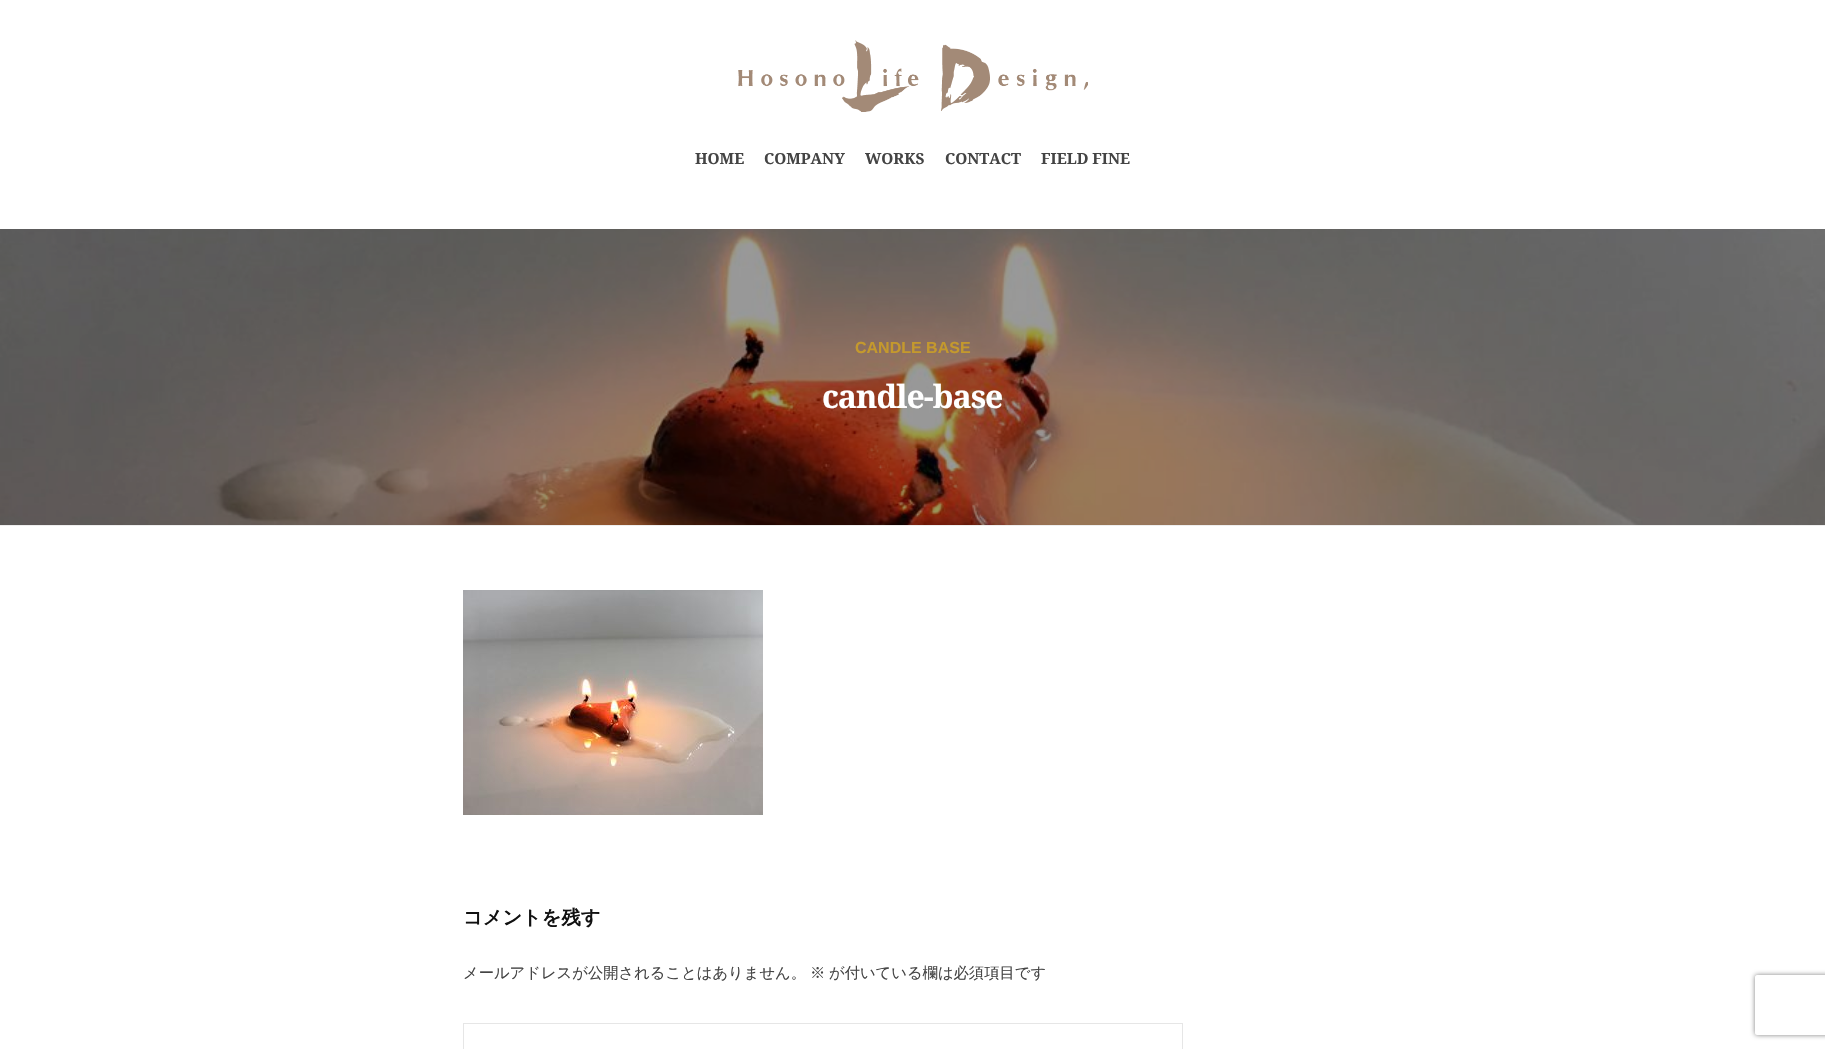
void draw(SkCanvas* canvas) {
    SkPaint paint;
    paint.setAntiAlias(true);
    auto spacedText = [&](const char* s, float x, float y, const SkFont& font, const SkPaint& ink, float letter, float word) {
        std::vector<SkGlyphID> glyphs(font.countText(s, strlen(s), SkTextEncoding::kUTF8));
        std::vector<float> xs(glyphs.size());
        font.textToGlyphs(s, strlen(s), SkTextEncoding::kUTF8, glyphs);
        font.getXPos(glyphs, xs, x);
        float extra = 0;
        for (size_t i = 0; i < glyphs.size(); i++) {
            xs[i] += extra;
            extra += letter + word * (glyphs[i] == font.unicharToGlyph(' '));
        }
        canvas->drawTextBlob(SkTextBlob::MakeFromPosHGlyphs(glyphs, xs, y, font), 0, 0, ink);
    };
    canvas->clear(0xFFFFFFFF);
    paint.setColor(0xFFEEEEEE);
    canvas->drawRect(SkRect::MakeXYWH(0, 525, 1825, 1), paint);
    canvas->drawImageRect(SkImages::DeferredFromEncodedData(SkData::MakeFromFileName("img1.png")), SkRect::MakeXYWH(738, 40, 350, 72), SkSamplingOptions());
    SkFont font1(fontMgr->matchFamilyStyle("Noto Serif", SkFontStyle::Bold()), 15.3f);
    font1.setSubpixel(true);
    paint.setColor(0xFF444444);
    canvas->drawString("HOME", 695, 164, font1, paint);
    canvas->drawString("COMPANY", 764, 164, font1, paint);
    canvas->drawString("WORKS", 865, 164, font1, paint);
    canvas->drawString("CONTACT", 945, 164, font1, paint);
    canvas->drawString("FIELD FINE", 1041, 164, font1, paint);
    canvas->drawImageRect(SkImages::DeferredFromEncodedData(SkData::MakeFromFileName("img2.png")), SkRect::MakeXYWH(0, 229, 1825, 296), SkSamplingOptions());
    SkFont font2(fontMgr->matchFamilyStyle("Liberation Sans", SkFontStyle::Bold()), 16);
    font2.setSubpixel(true);
    paint.setColor(0xFFC4992D);
    canvas->drawString("CANDLE BASE", 855, 353, font2, paint);
    SkFont font3(fontMgr->matchFamilyStyle("Noto Serif", SkFontStyle::Bold()), 32);
    font3.setSubpixel(true);
    paint.setColor(0xFFFFFFFF);
    spacedText("candle-base", 822, 408, font3, paint, -1, 0);
    canvas->drawImageRect(SkImages::DeferredFromEncodedData(SkData::MakeFromFileName("img3.png")), SkRect::MakeXYWH(463, 590, 300, 225), SkSamplingOptions());
    SkFont font4(fontMgr->matchFamilyStyle("WenQuanYi Zen Hei", SkFontStyle::Bold()), 19.25f);
    font4.setSubpixel(true);
    paint.setColor(0xFF111111);
    canvas->drawString("コメントを残す", 463, 924, font4, paint);
    SkFont font5(fontMgr->matchFamilyStyle("WenQuanYi Zen Hei", SkFontStyle(500, SkFontStyle::kNormal_Width, SkFontStyle::kUpright_Slant)), 15.3f);
    font5.setSubpixel(true);
    paint.setColor(0xFF444444);
    canvas->drawString("メールアドレスが公開されることはありません。", 463, 978, font5, paint);
    canvas->drawString("※", 810, 978, font5, paint);
    canvas->drawString("が付いている欄は必須項目です", 829, 978, font5, paint);
    paint.setStyle(SkPaint::kStroke_Style);
    paint.setStrokeWidth(1);
    paint.setColor(0xFFE6E6E6);
    canvas->drawRect(SkRect::MakeXYWH(463.5f, 1023.5f, 719, 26), paint);
    canvas->save();
    canvas->clipPath(SkPathBuilder(SkPathFillType::kEvenOdd).moveTo(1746, 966).lineTo(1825, 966).lineTo(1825, 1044).lineTo(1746, 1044).close().moveTo(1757, 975).lineTo(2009, 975).cubicTo(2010, 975, 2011, 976, 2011, 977).lineTo(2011, 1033).cubicTo(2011, 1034, 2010, 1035, 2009, 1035).lineTo(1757, 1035).cubicTo(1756, 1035, 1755, 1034, 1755, 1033).lineTo(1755, 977).cubicTo(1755, 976, 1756, 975, 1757, 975).close().detach(), true);
    paint.setStyle(SkPaint::kFill_Style);
    paint.setColor(0xFF808080);
    paint.setMaskFilter(SkMaskFilter::MakeBlur(kNormal_SkBlurStyle, 2.5f));
    canvas->drawRoundRect(SkRect::MakeXYWH(1755, 975, 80, 60), 2, 2, paint);
    paint.setMaskFilter(nullptr);
    canvas->restore();
}
